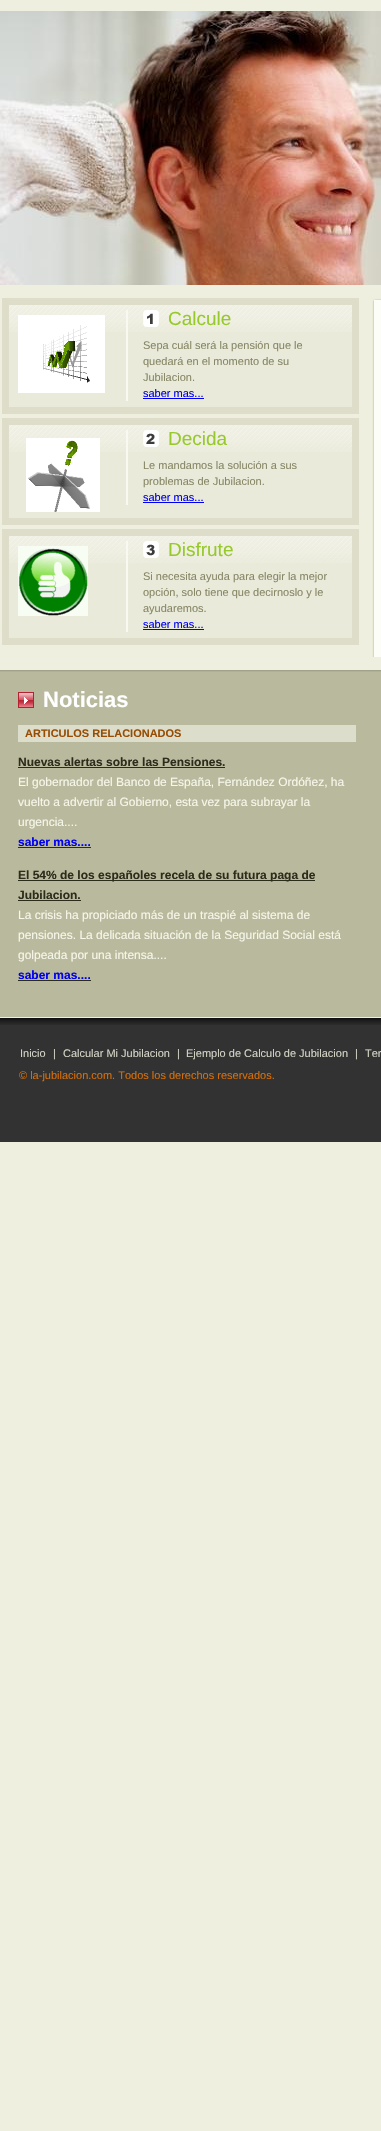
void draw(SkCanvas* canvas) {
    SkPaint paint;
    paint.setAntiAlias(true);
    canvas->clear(0xFFEFEFDF);
    canvas->drawImageRect(SkImages::DeferredFromEncodedData(SkData::MakeFromFileName("img1.png")), SkRect::MakeXYWH(0, 11, 381, 274), SkSamplingOptions());
    paint.setColor(0xFFEAEADA);
    canvas->drawRect(SkRect::MakeXYWH(9, 332, 343, 75), paint);
    canvas->drawImageRect(SkImages::DeferredFromEncodedData(SkData::MakeFromFileName("img2.png")), SkRect::MakeXYWH(9, 305, 343, 27), SkSamplingOptions());
    paint.setStyle(SkPaint::kStroke_Style);
    paint.setStrokeWidth(7);
    paint.setColor(0xFFDDDDCA);
    canvas->drawRect(SkRect::MakeXYWH(5.5f, 301.5f, 350, 109), paint);
    canvas->drawImageRect(SkImages::DeferredFromEncodedData(SkData::MakeFromFileName("img3.png")), SkRect::MakeXYWH(18, 315, 87, 78), SkSamplingOptions());
    paint.setStyle(SkPaint::kFill_Style);
    paint.setColor(0xFFF9F9F1);
    canvas->drawRect(SkRect::MakeXYWH(126, 310, 2, 91), paint);
    canvas->drawImageRect(SkImages::DeferredFromEncodedData(SkData::MakeFromFileName("img4.png")), SkRect::MakeXYWH(143, 310, 16, 17), SkSamplingOptions());
    SkFont font1(fontMgr->matchFamilyStyle("Liberation Sans", SkFontStyle::Normal()), 19);
    font1.setSubpixel(true);
    paint.setColor(0xFF97C92D);
    canvas->drawString("Calcule", 168, 325, font1, paint);
    SkFont font2(fontMgr->matchFamilyStyle("Liberation Sans", SkFontStyle::Normal()), 11);
    font2.setSubpixel(true);
    paint.setColor(0xFF878767);
    canvas->drawString("Sepa cuál será la pensión que le", 143, 349, font2, paint);
    canvas->drawString("quedará en el momento de su", 143, 365, font2, paint);
    canvas->drawString("Jubilacion.", 143, 381, font2, paint);
    paint.setColor(0xFF0000EE);
    canvas->drawString("saber mas...", 143, 397, font2, paint);
    canvas->drawRect(SkRect::MakeXYWH(143, 398, 61, 1), paint);
    paint.setColor(0xFFEAEADA);
    canvas->drawRect(SkRect::MakeXYWH(9, 452, 343, 66), paint);
    canvas->drawImageRect(SkImages::DeferredFromEncodedData(SkData::MakeFromFileName("img2.png")), SkRect::MakeXYWH(9, 425, 343, 27), SkSamplingOptions());
    paint.setStyle(SkPaint::kStroke_Style);
    paint.setColor(0xFFDDDDCA);
    canvas->drawRect(SkRect::MakeXYWH(5.5f, 421.5f, 350, 100), paint);
    canvas->drawImageRect(SkImages::DeferredFromEncodedData(SkData::MakeFromFileName("img5.png")), SkRect::MakeXYWH(26, 438, 74, 74), SkSamplingOptions());
    paint.setStyle(SkPaint::kFill_Style);
    paint.setColor(0xFFF9F9F1);
    canvas->drawRect(SkRect::MakeXYWH(126, 430, 2, 75), paint);
    canvas->drawImageRect(SkImages::DeferredFromEncodedData(SkData::MakeFromFileName("img6.png")), SkRect::MakeXYWH(143, 430, 16, 17), SkSamplingOptions());
    paint.setColor(0xFF97C92D);
    canvas->drawString("Decida", 168, 445, font1, paint);
    paint.setColor(0xFF878767);
    canvas->drawString("Le mandamos la solución a sus", 143, 469, font2, paint);
    canvas->drawString("problemas de Jubilacion.", 143, 485, font2, paint);
    paint.setColor(0xFF0000EE);
    canvas->drawString("saber mas...", 143, 501, font2, paint);
    canvas->drawRect(SkRect::MakeXYWH(143, 502, 61, 1), paint);
    paint.setColor(0xFFEAEADA);
    canvas->drawRect(SkRect::MakeXYWH(9, 563, 343, 75), paint);
    canvas->drawImageRect(SkImages::DeferredFromEncodedData(SkData::MakeFromFileName("img2.png")), SkRect::MakeXYWH(9, 536, 343, 27), SkSamplingOptions());
    paint.setStyle(SkPaint::kStroke_Style);
    paint.setColor(0xFFDDDDCA);
    canvas->drawRect(SkRect::MakeXYWH(5.5f, 532.5f, 350, 109), paint);
    canvas->drawImageRect(SkImages::DeferredFromEncodedData(SkData::MakeFromFileName("img7.png")), SkRect::MakeXYWH(18, 546, 70, 70), SkSamplingOptions());
    paint.setStyle(SkPaint::kFill_Style);
    paint.setColor(0xFFF9F9F1);
    canvas->drawRect(SkRect::MakeXYWH(126, 541, 2, 91), paint);
    canvas->drawImageRect(SkImages::DeferredFromEncodedData(SkData::MakeFromFileName("img8.png")), SkRect::MakeXYWH(143, 541, 16, 17), SkSamplingOptions());
    paint.setColor(0xFF97C92D);
    canvas->drawString("Disfrute", 168, 556, font1, paint);
    paint.setColor(0xFF878767);
    canvas->drawString("Si necesita ayuda para elegir la mejor", 143, 580, font2, paint);
    canvas->drawString("opción, solo tiene que decirnoslo y le", 143, 596, font2, paint);
    canvas->drawString("ayudaremos.", 143, 612, font2, paint);
    paint.setColor(0xFF0000EE);
    canvas->drawString("saber mas...", 143, 628, font2, paint);
    canvas->drawRect(SkRect::MakeXYWH(143, 629, 61, 1), paint);
    canvas->drawImageRect(SkImages::DeferredFromEncodedData(SkData::MakeFromFileName("img9.png")), SkRect::MakeXYWH(372, 301, 9, 356), SkSamplingOptions());
    canvas->drawImageRect(SkImages::DeferredFromEncodedData(SkData::MakeFromFileName("img10.png")), SkRect::MakeXYWH(372, 298, 9, 3), SkSamplingOptions());
    paint.setColor(0xFFB9B99D);
    canvas->drawRect(SkRect::MakeXYWH(0, 672, 381, 345), paint);
    canvas->drawImageRect(SkImages::DeferredFromEncodedData(SkData::MakeFromFileName("img11.png")), SkRect::MakeXYWH(0, 670, 381, 2), SkSamplingOptions());
    canvas->drawImageRect(SkImages::DeferredFromEncodedData(SkData::MakeFromFileName("img12.png")), SkRect::MakeXYWH(18, 692, 16, 16), SkSamplingOptions());
    SkFont font3(fontMgr->matchFamilyStyle("Liberation Sans", SkFontStyle::Bold()), 22);
    font3.setSubpixel(true);
    paint.setColor(0xFFFFFFFF);
    canvas->drawString("Noticias", 43, 707, font3, paint);
    paint.setColor(0xFFDDDDCB);
    canvas->drawRect(SkRect::MakeXYWH(18, 725, 338, 17), paint);
    SkFont font4(fontMgr->matchFamilyStyle("Liberation Sans", SkFontStyle::Bold()), 11);
    font4.setSubpixel(true);
    paint.setColor(0xFF974D04);
    canvas->drawString("ARTICULOS RELACIONADOS", 25, 737, font4, paint);
    SkFont font5(fontMgr->matchFamilyStyle("Liberation Sans", SkFontStyle::Bold()), 12);
    font5.setSubpixel(true);
    paint.setColor(0xFF2C2C1B);
    canvas->drawString("Nuevas alertas sobre las Pensiones.", 18, 766, font5, paint);
    canvas->drawRect(SkRect::MakeXYWH(18, 767, 207, 1), paint);
    SkFont font6(fontMgr->matchFamilyStyle("Liberation Sans", SkFontStyle::Normal()), 12);
    font6.setSubpixel(true);
    paint.setColor(0xFFF7F7EA);
    canvas->drawString("El gobernador del Banco de España, Fernández Ordóñez, ha", 18, 786, font6, paint);
    canvas->drawString("vuelto a advertir al Gobierno, esta vez para subrayar la", 18, 806, font6, paint);
    canvas->drawString("urgencia....", 18, 826, font6, paint);
    paint.setColor(0xFF0000EE);
    canvas->drawString("saber mas....", 18, 846, font5, paint);
    paint.setColor(0xFF2C2C1B);
    canvas->drawRect(SkRect::MakeXYWH(18, 847, 73, 1), paint);
    canvas->drawRect(SkRect::MakeXYWH(18, 880, 297, 1), paint);
    canvas->drawString("El 54% de los españoles recela de su futura paga de", 18, 879, font5, paint);
    canvas->drawString("Jubilacion.", 18, 899, font5, paint);
    canvas->drawRect(SkRect::MakeXYWH(18, 900, 63, 1), paint);
    paint.setColor(0xFFF7F7EA);
    canvas->drawString("La crisis ha propiciado más de un traspié al sistema de", 18, 919, font6, paint);
    canvas->drawString("pensiones. La delicada situación de la Seguridad Social está", 18, 939, font6, paint);
    canvas->drawString("golpeada por una intensa....", 18, 959, font6, paint);
    paint.setColor(0xFF0000EE);
    canvas->drawString("saber mas....", 18, 979, font5, paint);
    paint.setColor(0xFF2C2C1B);
    canvas->drawRect(SkRect::MakeXYWH(18, 980, 73, 1), paint);
    paint.setColor(0xFF323232);
    canvas->drawRect(SkRect::MakeXYWH(0, 1025, 381, 117), paint);
    canvas->drawImageRect(SkImages::DeferredFromEncodedData(SkData::MakeFromFileName("img13.png")), SkRect::MakeXYWH(0, 1017, 381, 8), SkSamplingOptions());
    paint.setColor(0xFFD4D4C6);
    canvas->drawString("Inicio", 20, 1057, font2, paint);
    canvas->drawString("|", 53, 1057, font2, paint);
    canvas->drawString("Calcular Mi Jubilacion", 63, 1057, font2, paint);
    canvas->drawString("|", 177, 1057, font2, paint);
    canvas->drawString("Ejemplo de Calculo de Jubilacion", 186, 1057, font2, paint);
    canvas->drawString("|", 355, 1057, font2, paint);
    canvas->drawString("Ter", 365, 1057, font2, paint);
    paint.setColor(0xFFD76E08);
    canvas->drawString("© la-jubilacion.com. Todos los derechos reservados.", 19, 1079, font2, paint);
}
